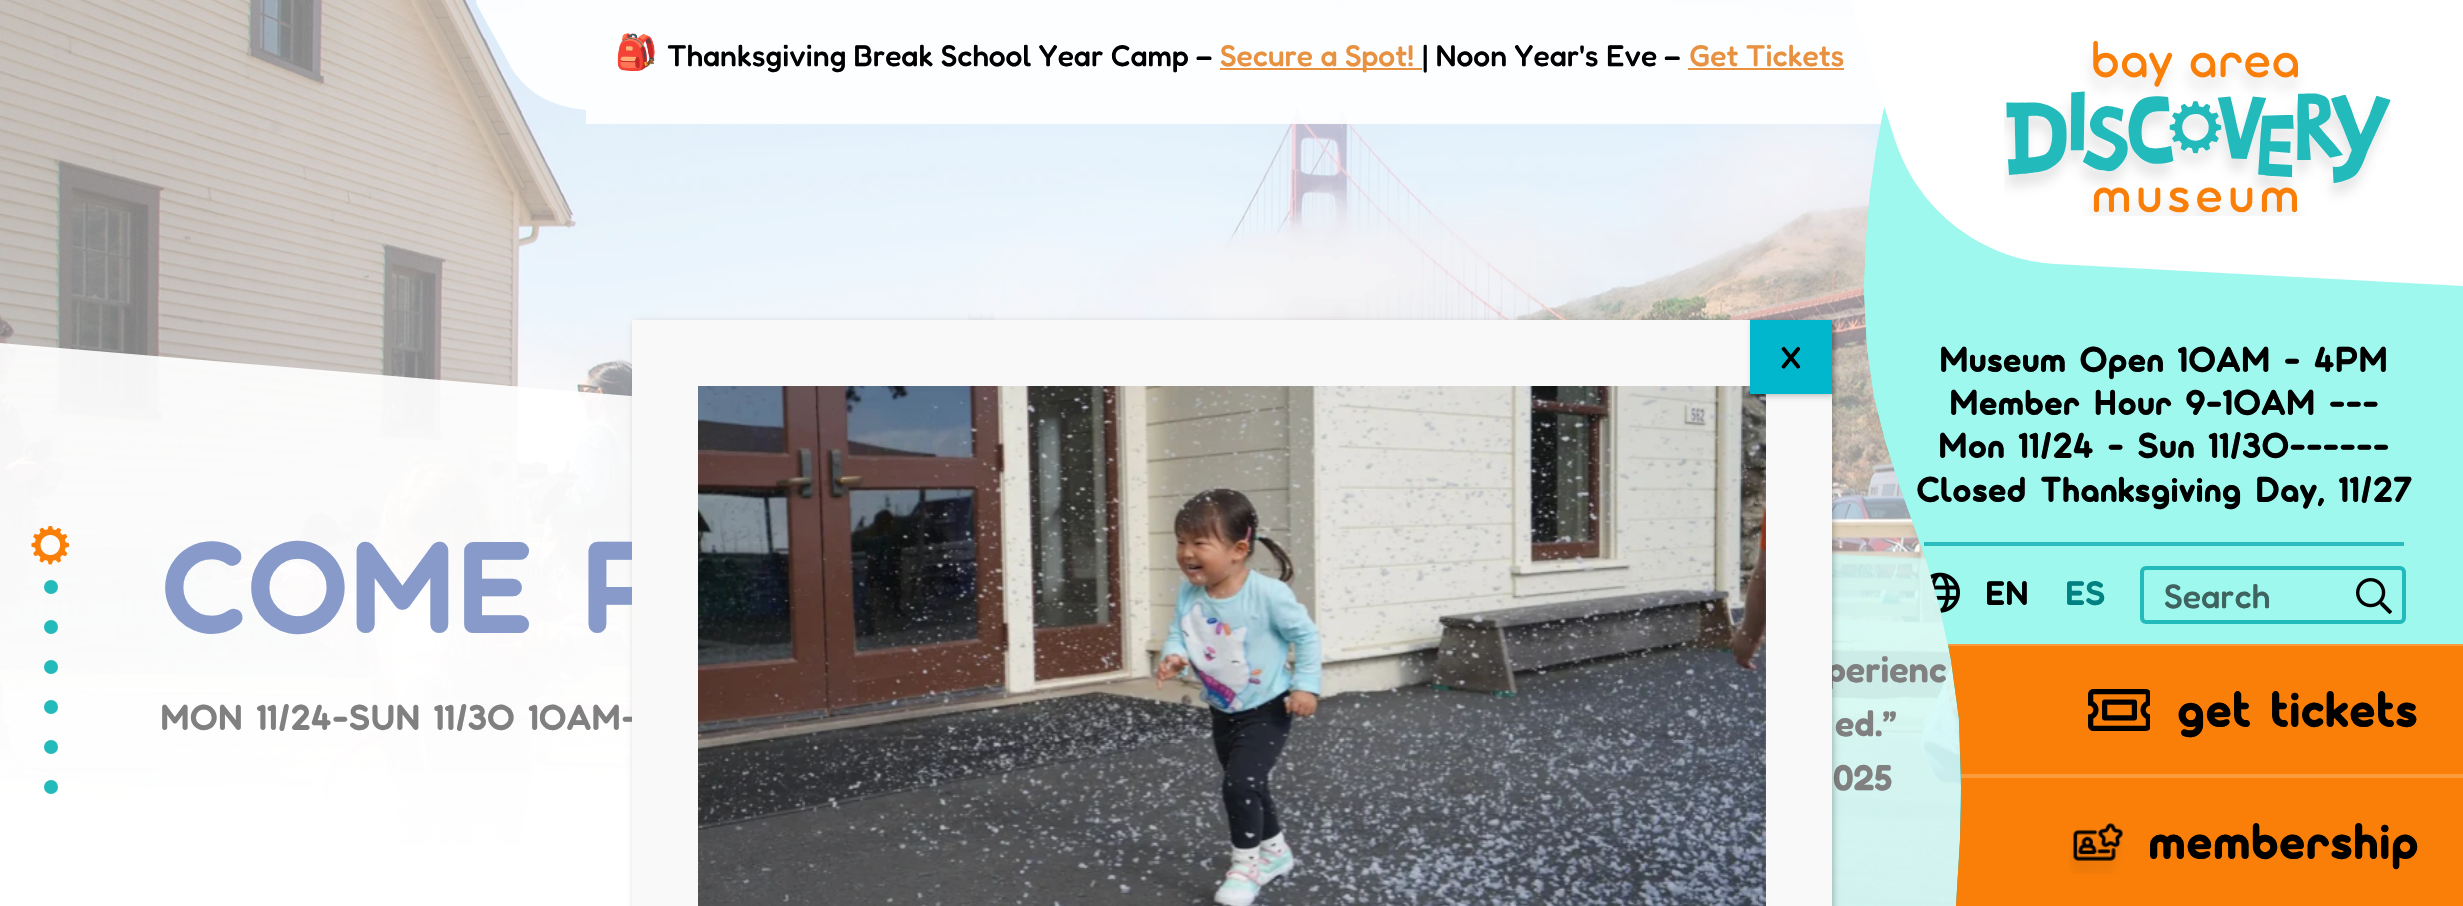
void draw(SkCanvas* canvas) {
    SkPaint paint;
    paint.setAntiAlias(true);
    canvas->clear(0xFFFFFFFF);
    canvas->drawImageRect(SkImages::DeferredFromEncodedData(SkData::MakeFromFileName("img9.png")), SkRect::MakeXYWH(0, 0, 1961, 906), SkSamplingOptions());
    paint.setColor(0xE6FFFFFF);
    canvas->drawPath(SkPathBuilder().moveTo(476, 0).lineTo(586, 0).lineTo(586, 110).cubicTo(567, 108, 548, 103, 532, 91).cubicTo(527, 87, 522, 82, 518, 77).cubicTo(512, 71, 509, 63, 505, 56).lineTo(477, 5).close().detach(), paint);
    canvas->drawRect(SkRect::MakeXYWH(586, 0, 1299, 124), paint);
    canvas->drawImageRect(SkImages::DeferredFromEncodedData(SkData::MakeFromFileName("img1.png")), SkRect::MakeXYWH(617, 33, 38, 38), SkSamplingOptions());
    SkFont font1(fontMgr->matchFamilyStyle("Fredoka", SkFontStyle(500, SkFontStyle::kNormal_Width, SkFontStyle::kUpright_Slant)), 30);
    font1.setSubpixel(true);
    paint.setColor(0xFF000000);
    canvas->drawString("Thanksgiving Break School Year Camp –", 667, 66, font1, paint);
    paint.setColor(0xFFE89140);
    canvas->drawRect(SkRect::MakeXYWH(1220, 68, 202, 2), paint);
    canvas->drawString("Secure a Spot!", 1220, 66, font1, paint);
    paint.setColor(0xFF000000);
    canvas->drawString("| Noon Year's Eve –", 1422, 66, font1, paint);
    paint.setColor(0xFFE89140);
    canvas->drawString("Get Tickets", 1689, 66, font1, paint);
    canvas->drawRect(SkRect::MakeXYWH(1688, 68, 156, 2), paint);
    canvas->drawImageRect(SkImages::DeferredFromEncodedData(SkData::MakeFromFileName("img10.png")), SkRect::MakeXYWH(1832, 553, 129, 353), SkSamplingOptions());
    SkFont font2(fontMgr->matchFamilyStyle("Fredoka", SkFontStyle(600, SkFontStyle::kNormal_Width, SkFontStyle::kUpright_Slant)), 36);
    font2.setSubpixel(true);
    paint.setColor(0xFF808080);
    canvas->drawString("perienc", 1826, 682, font2, paint);
    canvas->drawString("ed.”", 1835, 736, font2, paint);
    canvas->drawString("025", 1833, 790, font2, paint);
    paint.setColor(0xFF9EF8EE);
    canvas->drawPath(SkPathBuilder().moveTo(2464, 0).lineTo(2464, 906).lineTo(1956, 906).lineTo(1960, 840).lineTo(1961, 788).lineTo(1959, 719).lineTo(1951, 660).lineTo(1940, 609).lineTo(1927, 563).lineTo(1898, 481).lineTo(1885, 440).lineTo(1874, 396).lineTo(1867, 347).lineTo(1864, 290).lineTo(1866, 240).lineTo(1870, 193).lineTo(1876, 151).lineTo(1883, 113).lineTo(1892, 80).lineTo(1900, 52).lineTo(1907, 30).lineTo(1919, 0).close().detach(), paint);
    canvas->drawPath(SkPathBuilder().moveTo(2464, 0).lineTo(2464, 644).lineTo(1948, 644).lineTo(1940, 609).lineTo(1927, 563).lineTo(1898, 481).lineTo(1885, 440).lineTo(1874, 396).lineTo(1867, 347).lineTo(1864, 290).lineTo(1866, 240).lineTo(1870, 193).lineTo(1876, 151).lineTo(1883, 113).lineTo(1892, 80).lineTo(1900, 52).lineTo(1907, 30).lineTo(1919, 0).close().detach(), paint);
    paint.setColor(0xFFFFFFFF);
    canvas->drawPath(SkPathBuilder().moveTo(1895, 140).cubicTo(1918, 211, 1982, 260, 2056, 264).lineTo(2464, 286).lineTo(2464, 0).lineTo(1850, 0).close().detach(), paint);
    canvas->drawImageRect(SkImages::DeferredFromEncodedData(SkData::MakeFromFileName("img2.png")), SkRect::MakeXYWH(2004, 40, 387, 176), SkSamplingOptions());
    SkFont font3(fontMgr->matchFamilyStyle("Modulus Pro", SkFontStyle(800, SkFontStyle::kNormal_Width, SkFontStyle::kUpright_Slant)), 36);
    font3.setSubpixel(true);
    paint.setColor(0xFF000000);
    canvas->drawString("Museum Open 10AM - 4PM", 1939, 372, font3, paint);
    canvas->drawString("Member Hour 9-10AM ---", 1949, 415, font3, paint);
    canvas->drawString("Mon 11/24 - Sun 11/30------", 1938, 458, font3, paint);
    canvas->drawString("Closed Thanksgiving Day, 11/27", 1916, 502, font3, paint);
    paint.setColor(0xFF2DBCBD);
    canvas->drawRect(SkRect::MakeXYWH(1924, 542, 480, 4), paint);
    canvas->drawImageRect(SkImages::DeferredFromEncodedData(SkData::MakeFromFileName("img3.png")), SkRect::MakeXYWH(1930, 572, 30, 41), SkSamplingOptions());
    SkFont font4(fontMgr->matchFamilyStyle("Modulus Pro", SkFontStyle(800, SkFontStyle::kNormal_Width, SkFontStyle::kUpright_Slant)), 34);
    font4.setSubpixel(true);
    paint.setColor(0xFF000000);
    canvas->drawString("EN", 1985, 605, font4, paint);
    paint.setColor(0xFF008080);
    canvas->drawString("ES", 2065, 605, font4, paint);
    paint.setStyle(SkPaint::kStroke_Style);
    paint.setStrokeWidth(4);
    paint.setColor(0xFF22BABB);
    canvas->drawRoundRect(SkRect::MakeXYWH(2142, 568, 262, 54), 4, 4, paint);
    SkFont font5(fontMgr->matchFamilyStyle("Fredoka", SkFontStyle(500, SkFontStyle::kNormal_Width, SkFontStyle::kUpright_Slant)), 34);
    font5.setSubpixel(true);
    paint.setStyle(SkPaint::kFill_Style);
    paint.setColor(0xFF3F635F);
    canvas->drawString("Search", 2164, 608, font5, paint);
    canvas->drawImageRect(SkImages::DeferredFromEncodedData(SkData::MakeFromFileName("img4.png")), SkRect::MakeXYWH(2356, 578, 36, 36), SkSamplingOptions());
    paint.setColor(0xFF22BABB);
    canvas->drawPath(SkPathBuilder().moveTo(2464, 644).lineTo(1948, 644).lineTo(1951, 660).lineTo(1959, 719).lineTo(1961, 788).lineTo(1960, 840).lineTo(1956, 906).lineTo(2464, 906).close().detach(), paint);
    paint.setColor(0xFFFA7F08);
    canvas->drawPath(SkPathBuilder().moveTo(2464, 644).lineTo(1948, 644).lineTo(1951, 660).lineTo(1959, 719).lineTo(1961, 776).lineTo(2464, 776).close().detach(), paint);
    paint.setColor(0x38FFFFFF);
    canvas->drawRect(SkRect::MakeXYWH(1948, 644, 515, 2), paint);
    paint.setColor(0xFFFB9B3E);
    canvas->drawRect(SkRect::MakeXYWH(1961, 774, 502, 2), paint);
    canvas->drawImageRect(SkImages::DeferredFromEncodedData(SkData::MakeFromFileName("img5.png")), SkRect::MakeXYWH(2088, 689, 62, 42), SkSamplingOptions());
    SkFont font6(fontMgr->matchFamilyStyle("Modulus Pro", SkFontStyle(800, SkFontStyle::kNormal_Width, SkFontStyle::kUpright_Slant)), 51.25f);
    font6.setSubpixel(true);
    paint.setColor(0xFF000000);
    canvas->drawString("get tickets", 2177, 727, font6, paint);
    paint.setColor(0xFFFA7F08);
    canvas->drawPath(SkPathBuilder().moveTo(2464, 776).lineTo(1961, 776).lineTo(1961, 806).lineTo(1960, 840).lineTo(1956, 906).lineTo(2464, 906).close().detach(), paint);
    paint.setColor(0xFFFB9B3E);
    canvas->drawRect(SkRect::MakeXYWH(1961, 776, 502, 2), paint);
    canvas->drawImageRect(SkImages::DeferredFromEncodedData(SkData::MakeFromFileName("img6.png")), SkRect::MakeXYWH(2069, 823, 54, 51), SkSamplingOptions());
    paint.setColor(0xFF000000);
    canvas->drawString("membership", 2148, 859, font6, paint);
    {
        const SkColor colors[] = {0xE6FFFFFF, 0xFFFFFFFF};
        const float stops[] = {0, 1};
        const SkPoint ends[] = {{1217, 298}, {1217, 906}};
        paint.setShader(SkGradientShader::MakeLinear(ends, colors, stops, 2, SkTileMode::kClamp));
        paint.setAlpha(255);
    }
    canvas->drawPath(SkPathBuilder().moveTo(1035, 563).cubicTo(1013, 481, 941, 422, 857, 415).lineTo(0, 343).lineTo(0, 906).lineTo(1128, 906).close().detach(), paint);
    canvas->drawImageRect(SkImages::DeferredFromEncodedData(SkData::MakeFromFileName("img7.png")), SkRect::MakeXYWH(31, 526, 39, 39), SkSamplingOptions());
    paint.setShader(nullptr);
    paint.setColor(0xFF22BABB);
    canvas->drawCircle(51, 587, 7, paint);
    canvas->drawCircle(51, 627, 7, paint);
    canvas->drawCircle(51, 667, 7, paint);
    canvas->drawCircle(51, 707, 7, paint);
    canvas->drawCircle(51, 747, 7, paint);
    canvas->drawCircle(51, 787, 7, paint);
    paint.setColor(0x3B020202);
    paint.setMaskFilter(SkMaskFilter::MakeBlur(kNormal_SkBlurStyle, 3));
    canvas->drawRect(SkRect::MakeXYWH(634, 322, 1200, 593), paint);
    paint.setMaskFilter(nullptr);
    SkFont font7(fontMgr->matchFamilyStyle("Modulus Pro", SkFontStyle(800, SkFontStyle::kNormal_Width, SkFontStyle::kUpright_Slant)), 130);
    font7.setSubpixel(true);
    paint.setColor(0xFF879ACA);
    canvas->drawString("COME P", 160, 633, font7, paint);
    paint.setColor(0xFF808080);
    canvas->drawString("MON 11/24-SUN 11/30 10AM-", 160, 730, font3, paint);
    paint.setColor(0xFFF9F9F9);
    canvas->drawRect(SkRect::MakeXYWH(632, 320, 1200, 586), paint);
    canvas->drawImageRect(SkImages::DeferredFromEncodedData(SkData::MakeFromFileName("img8.png")), SkRect::MakeXYWH(698, 386, 1068, 520), SkSamplingOptions());
    paint.setColor(0x3B020202);
    paint.setMaskFilter(SkMaskFilter::MakeBlur(kNormal_SkBlurStyle, 3));
    canvas->drawRect(SkRect::MakeXYWH(1752, 322, 82, 74), paint);
    paint.setMaskFilter(nullptr);
    paint.setColor(0xFF00B7CD);
    canvas->drawRect(SkRect::MakeXYWH(1750, 320, 82, 74), paint);
    SkFont font8(fontMgr->matchFamilyStyle("Fredoka", SkFontStyle::Normal()), 44);
    font8.setSubpixel(true);
    paint.setColor(0xFF000000);
    canvas->drawString("x", 1780, 368, font8, paint);
}
